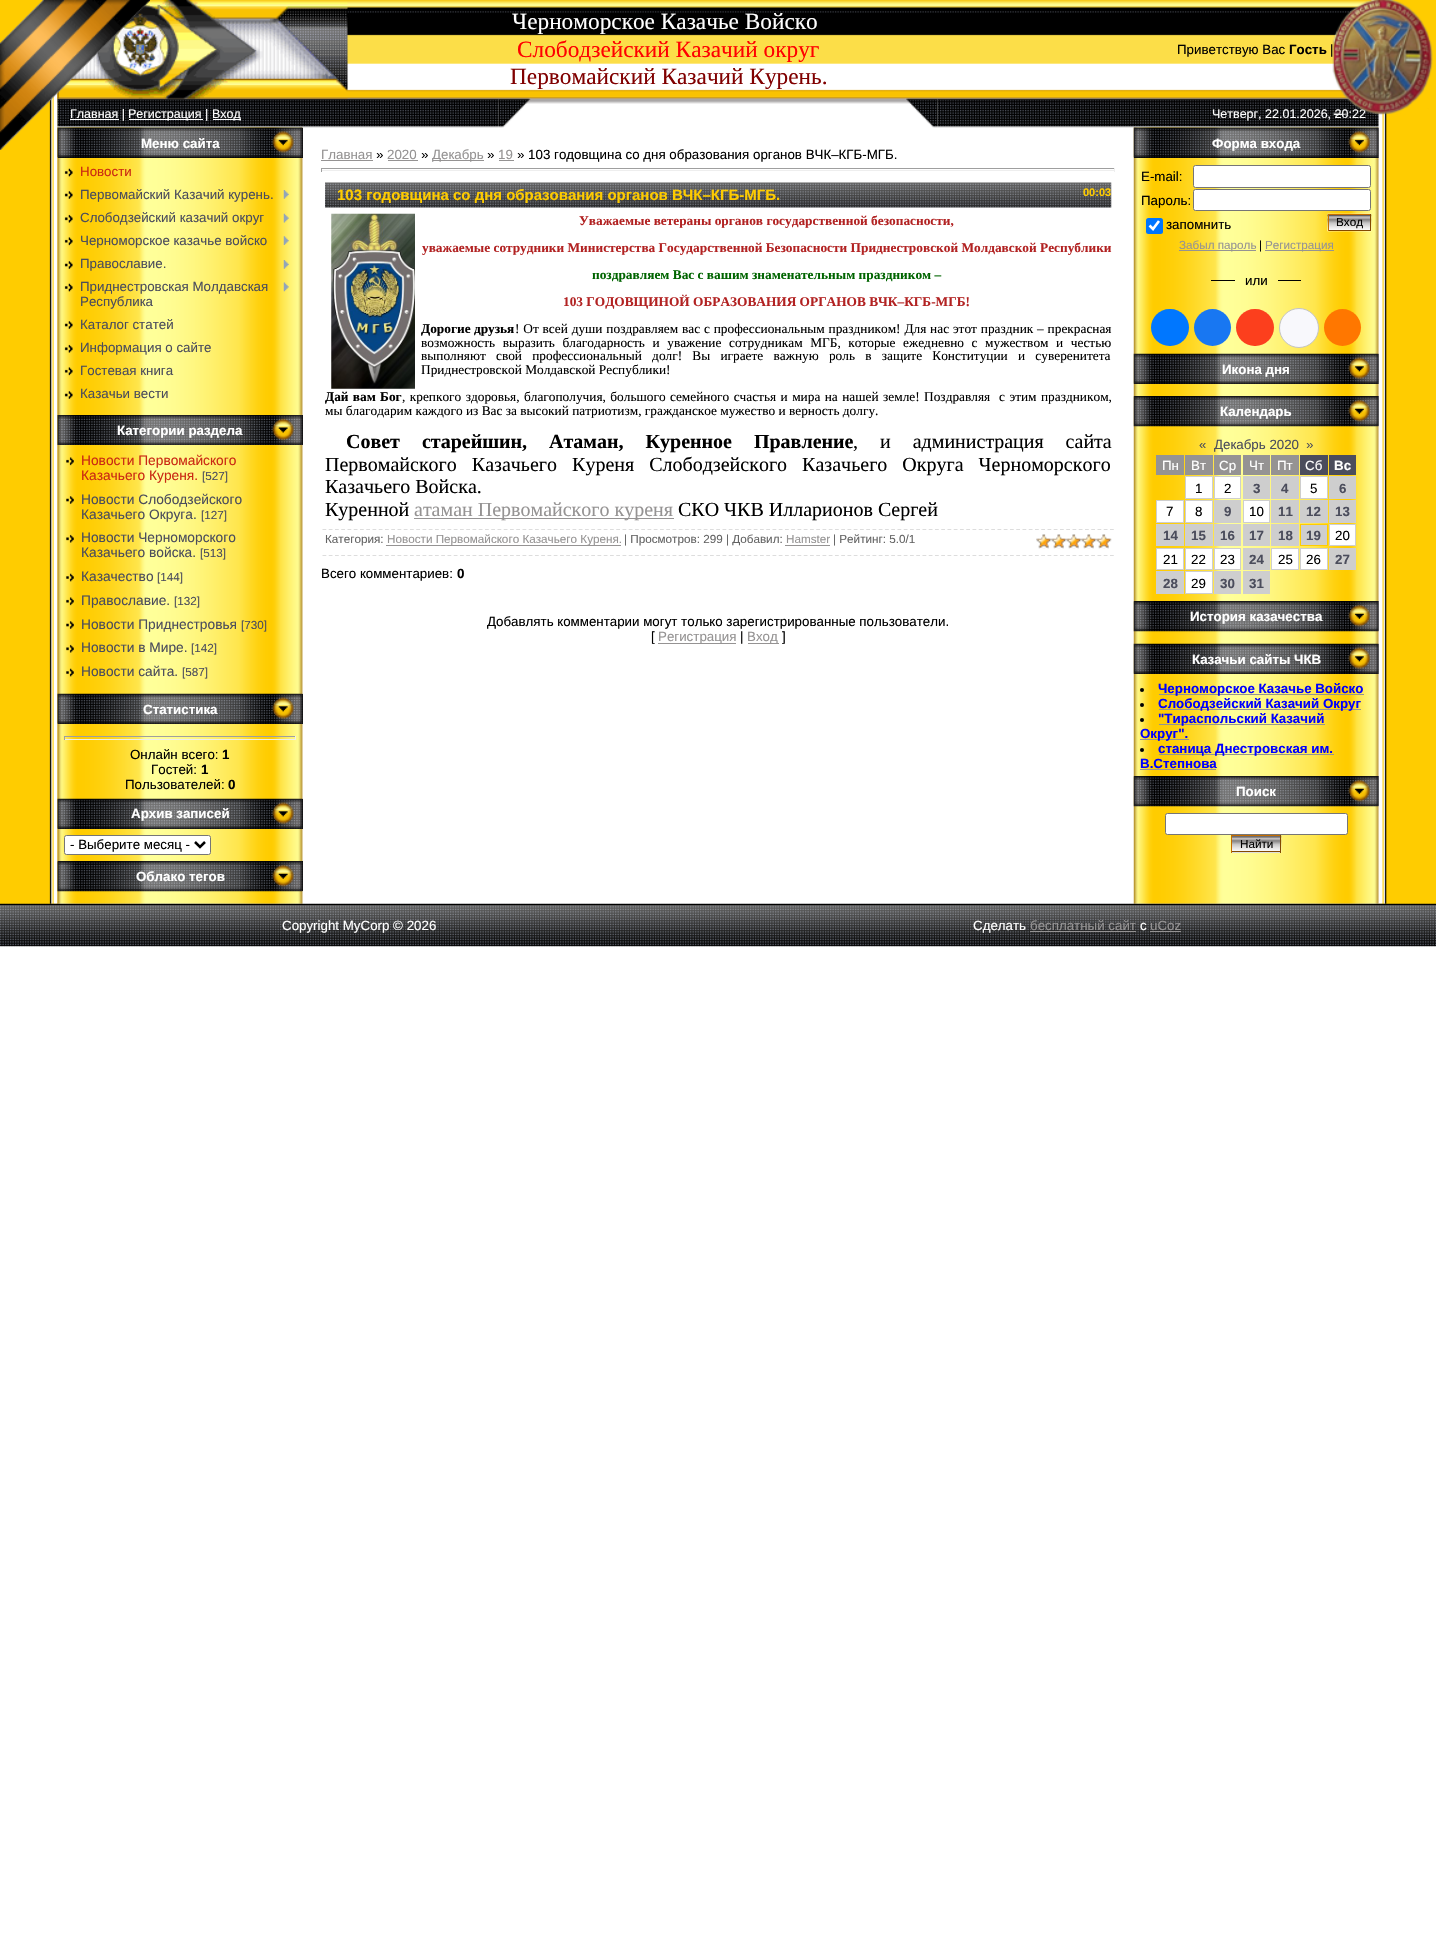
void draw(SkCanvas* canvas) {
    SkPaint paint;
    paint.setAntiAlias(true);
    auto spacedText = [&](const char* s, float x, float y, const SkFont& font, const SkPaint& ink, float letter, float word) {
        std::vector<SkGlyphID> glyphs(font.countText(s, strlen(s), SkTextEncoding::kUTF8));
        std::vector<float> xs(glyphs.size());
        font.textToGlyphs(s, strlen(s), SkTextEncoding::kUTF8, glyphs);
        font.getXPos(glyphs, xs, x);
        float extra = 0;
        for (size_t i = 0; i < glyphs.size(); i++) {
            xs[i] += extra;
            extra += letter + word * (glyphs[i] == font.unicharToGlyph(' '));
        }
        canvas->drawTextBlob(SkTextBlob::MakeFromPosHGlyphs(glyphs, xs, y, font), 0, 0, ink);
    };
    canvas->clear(0xFFFFFFFF);
    paint.setColor(0xFFFFCC00);
    canvas->drawRect(SkRect::MakeXYWH(0, 0, 58, 904), paint);
    canvas->drawImageRect(SkImages::DeferredFromEncodedData(SkData::MakeFromFileName("img1.png")), SkRect::MakeXYWH(49, 92, 9, 812), SkSamplingOptions());
    canvas->drawImageRect(SkImages::DeferredFromEncodedData(SkData::MakeFromFileName("img3.png")), SkRect::MakeXYWH(57, 0, 1316, 99), SkSamplingOptions());
    canvas->drawImageRect(SkImages::DeferredFromEncodedData(SkData::MakeFromFileName("img6.png")), SkRect::MakeXYWH(57, 98, 1322, 30), SkSamplingOptions());
    canvas->drawImageRect(SkImages::DeferredFromEncodedData(SkData::MakeFromFileName("img7.png")), SkRect::MakeXYWH(57, 98, 442, 30), SkSamplingOptions());
    canvas->drawImageRect(SkImages::DeferredFromEncodedData(SkData::MakeFromFileName("img4.png")), SkRect::MakeXYWH(57, 0, 291, 99), SkSamplingOptions());
    paint.setColor(0xFFFFFFFF);
    canvas->drawRect(SkRect::MakeXYWH(70, 119, 49, 1), paint);
    SkFont font1(fontMgr->matchFamilyStyle("Liberation Sans", SkFontStyle::Normal()), 12.5f);
    font1.setSubpixel(true);
    canvas->drawString("Главная |", 70, 118, font1, paint);
    canvas->drawRect(SkRect::MakeXYWH(129, 119, 74, 1), paint);
    canvas->drawString("Регистрация |", 128, 118, font1, paint);
    canvas->drawImageRect(SkImages::DeferredFromEncodedData(SkData::MakeFromFileName("img11.png")), SkRect::MakeXYWH(57, 127, 246, 777), SkSamplingOptions());
    paint.setColor(0xFF000000);
    canvas->drawRect(SkRect::MakeXYWH(58, 128, 245, 30), paint);
    canvas->drawImageRect(SkImages::DeferredFromEncodedData(SkData::MakeFromFileName("img12.png")), SkRect::MakeXYWH(57, 127, 246, 31), SkSamplingOptions());
    SkFont font2(fontMgr->matchFamilyStyle("Liberation Sans", SkFontStyle::Bold()), 13.33f);
    font2.setSubpixel(true);
    paint.setColor(0xFFFFFFFF);
    canvas->drawString("Меню сайта", 141, 148, font2, paint);
    canvas->drawImageRect(SkImages::DeferredFromEncodedData(SkData::MakeFromFileName("img2.png")), SkRect::MakeXYWH(0, 0, 150, 150), SkSamplingOptions());
    SkFont font3(fontMgr->matchFamilyStyle("Liberation Serif", SkFontStyle::Normal()), 23.3f);
    font3.setSubpixel(true);
    canvas->drawString("Черноморское Казачье Войско", 512, 29, font3, paint);
    paint.setColor(0xFFFF0000);
    canvas->drawString("Слободзейский Казачий округ", 517, 57, font3, paint);
    paint.setColor(0xFF800000);
    canvas->drawString("Первомайский Казачий Курень.", 510, 84, font3, paint);
    SkFont font4(fontMgr->matchFamilyStyle("Liberation Sans", SkFontStyle::Normal()), 13.33f);
    font4.setSubpixel(true);
    paint.setColor(0xFF000000);
    canvas->drawString("Приветствую Вас", 1177, 54, font4, paint);
    canvas->drawString("Гость", 1289, 54, font2, paint);
    canvas->drawString("|", 1330, 54, font4, paint);
    canvas->drawImageRect(SkImages::DeferredFromEncodedData(SkData::MakeFromFileName("img10.png")), SkRect::MakeXYWH(937, 98, 442, 30), SkSamplingOptions());
    paint.setColor(0xFFFFFFFF);
    canvas->drawString("Четверг, 22.01.2026, 20:22", 1212, 118, font1, paint);
    paint.setColor(0xFFFFCC00);
    canvas->drawRect(SkRect::MakeXYWH(1379, 0, 57, 904), paint);
    canvas->drawImageRect(SkImages::DeferredFromEncodedData(SkData::MakeFromFileName("img32.png")), SkRect::MakeXYWH(1133, 127, 246, 777), SkSamplingOptions());
    paint.setColor(0xFF000000);
    canvas->drawRect(SkRect::MakeXYWH(1134, 128, 245, 30), paint);
    canvas->drawImageRect(SkImages::DeferredFromEncodedData(SkData::MakeFromFileName("img33.png")), SkRect::MakeXYWH(1133, 127, 246, 31), SkSamplingOptions());
    canvas->drawRect(SkRect::MakeXYWH(1134, 354, 245, 30), paint);
    canvas->drawImageRect(SkImages::DeferredFromEncodedData(SkData::MakeFromFileName("img35.png")), SkRect::MakeXYWH(1133, 353, 246, 31), SkSamplingOptions());
    canvas->drawRect(SkRect::MakeXYWH(1134, 396, 245, 30), paint);
    canvas->drawImageRect(SkImages::DeferredFromEncodedData(SkData::MakeFromFileName("img36.png")), SkRect::MakeXYWH(1133, 396, 246, 31), SkSamplingOptions());
    canvas->drawRect(SkRect::MakeXYWH(1134, 601, 245, 30), paint);
    canvas->drawImageRect(SkImages::DeferredFromEncodedData(SkData::MakeFromFileName("img36.png")), SkRect::MakeXYWH(1133, 601, 246, 31), SkSamplingOptions());
    canvas->drawRect(SkRect::MakeXYWH(1134, 644, 245, 30), paint);
    canvas->drawImageRect(SkImages::DeferredFromEncodedData(SkData::MakeFromFileName("img37.png")), SkRect::MakeXYWH(1133, 643, 246, 31), SkSamplingOptions());
    canvas->drawRect(SkRect::MakeXYWH(1134, 776, 245, 30), paint);
    canvas->drawImageRect(SkImages::DeferredFromEncodedData(SkData::MakeFromFileName("img38.png")), SkRect::MakeXYWH(1133, 776, 246, 31), SkSamplingOptions());
    canvas->drawImageRect(SkImages::DeferredFromEncodedData(SkData::MakeFromFileName("img40.png")), SkRect::MakeXYWH(1378, 112, 9, 792), SkSamplingOptions());
    canvas->drawImageRect(SkImages::DeferredFromEncodedData(SkData::MakeFromFileName("img5.png")), SkRect::MakeXYWH(1332, 0, 101, 115), SkSamplingOptions());
    paint.setColor(0xFFFFFFFF);
    canvas->drawRect(SkRect::MakeXYWH(213, 119, 28, 1), paint);
    canvas->drawString("Вход", 212, 118, font1, paint);
    canvas->drawImageRect(SkImages::DeferredFromEncodedData(SkData::MakeFromFileName("img8.png")), SkRect::MakeXYWH(498, 98, 33, 30), SkSamplingOptions());
    canvas->drawImageRect(SkImages::DeferredFromEncodedData(SkData::MakeFromFileName("img9.png")), SkRect::MakeXYWH(905, 98, 33, 30), SkSamplingOptions());
    canvas->drawImageRect(SkImages::DeferredFromEncodedData(SkData::MakeFromFileName("img13.png")), SkRect::MakeXYWH(64, 168, 9, 9), SkSamplingOptions());
    paint.setColor(0xFFCA2913);
    canvas->drawString("Новости", 80, 176, font4, paint);
    canvas->drawImageRect(SkImages::DeferredFromEncodedData(SkData::MakeFromFileName("img14.png")), SkRect::MakeXYWH(64, 191, 9, 8), SkSamplingOptions());
    paint.setColor(0xFF4B4D5C);
    canvas->drawString("Первомайский Казачий курень.", 80, 199, font4, paint);
    canvas->drawImageRect(SkImages::DeferredFromEncodedData(SkData::MakeFromFileName("img15.png")), SkRect::MakeXYWH(283, 190, 6, 9), SkSamplingOptions());
    canvas->drawImageRect(SkImages::DeferredFromEncodedData(SkData::MakeFromFileName("img16.png")), SkRect::MakeXYWH(64, 214, 9, 9), SkSamplingOptions());
    canvas->drawString("Слободзейский казачий округ", 80, 222, font4, paint);
    canvas->drawImageRect(SkImages::DeferredFromEncodedData(SkData::MakeFromFileName("img17.png")), SkRect::MakeXYWH(283, 213, 6, 10), SkSamplingOptions());
    canvas->drawImageRect(SkImages::DeferredFromEncodedData(SkData::MakeFromFileName("img18.png")), SkRect::MakeXYWH(64, 237, 9, 9), SkSamplingOptions());
    canvas->drawString("Черноморское казачье войско", 80, 245, font4, paint);
    canvas->drawImageRect(SkImages::DeferredFromEncodedData(SkData::MakeFromFileName("img19.png")), SkRect::MakeXYWH(283, 236, 6, 9), SkSamplingOptions());
    canvas->drawImageRect(SkImages::DeferredFromEncodedData(SkData::MakeFromFileName("img14.png")), SkRect::MakeXYWH(64, 261, 9, 8), SkSamplingOptions());
    canvas->drawString("Православие.", 80, 268, font4, paint);
    canvas->drawImageRect(SkImages::DeferredFromEncodedData(SkData::MakeFromFileName("img15.png")), SkRect::MakeXYWH(283, 260, 6, 9), SkSamplingOptions());
    canvas->drawImageRect(SkImages::DeferredFromEncodedData(SkData::MakeFromFileName("img13.png")), SkRect::MakeXYWH(64, 283, 9, 9), SkSamplingOptions());
    canvas->drawString("Приднестровская Молдавская", 80, 291, font4, paint);
    canvas->drawImageRect(SkImages::DeferredFromEncodedData(SkData::MakeFromFileName("img20.png")), SkRect::MakeXYWH(283, 282, 6, 10), SkSamplingOptions());
    canvas->drawString("Республика", 80, 306, font4, paint);
    canvas->drawImageRect(SkImages::DeferredFromEncodedData(SkData::MakeFromFileName("img14.png")), SkRect::MakeXYWH(64, 321, 9, 8), SkSamplingOptions());
    canvas->drawString("Каталог статей", 80, 329, font4, paint);
    canvas->drawImageRect(SkImages::DeferredFromEncodedData(SkData::MakeFromFileName("img16.png")), SkRect::MakeXYWH(64, 344, 9, 9), SkSamplingOptions());
    canvas->drawString("Информация о сайте", 80, 352, font4, paint);
    canvas->drawImageRect(SkImages::DeferredFromEncodedData(SkData::MakeFromFileName("img18.png")), SkRect::MakeXYWH(64, 367, 9, 9), SkSamplingOptions());
    canvas->drawString("Гостевая книга", 80, 375, font4, paint);
    canvas->drawImageRect(SkImages::DeferredFromEncodedData(SkData::MakeFromFileName("img14.png")), SkRect::MakeXYWH(64, 391, 9, 8), SkSamplingOptions());
    canvas->drawString("Казачьи вести", 80, 398, font4, paint);
    paint.setColor(0xFF000000);
    canvas->drawRect(SkRect::MakeXYWH(302, 415, 1, 30), paint);
    canvas->drawImageRect(SkImages::DeferredFromEncodedData(SkData::MakeFromFileName("img21.png")), SkRect::MakeXYWH(57, 415, 246, 30), SkSamplingOptions());
    paint.setColor(0xFFFFFFFF);
    canvas->drawString("Категории раздела", 117, 435, font2, paint);
    canvas->drawImageRect(SkImages::DeferredFromEncodedData(SkData::MakeFromFileName("img22.png")), SkRect::MakeXYWH(66, 457, 8, 9), SkSamplingOptions());
    SkFont font5(fontMgr->matchFamilyStyle("Liberation Sans", SkFontStyle::Normal()), 13.75f);
    font5.setSubpixel(true);
    paint.setColor(0xFFCA2913);
    canvas->drawString("Новости Первомайского", 81, 465, font5, paint);
    canvas->drawString("Казачьего Куреня.", 81, 480, font5, paint);
    SkFont font6(fontMgr->matchFamilyStyle("Liberation Sans", SkFontStyle::Normal()), 11.7f);
    font6.setSubpixel(true);
    paint.setColor(0xFF4B4D5C);
    canvas->drawString("[527]", 202, 480, font6, paint);
    canvas->drawImageRect(SkImages::DeferredFromEncodedData(SkData::MakeFromFileName("img23.png")), SkRect::MakeXYWH(66, 496, 8, 8), SkSamplingOptions());
    canvas->drawString("Новости Слободзейского", 81, 504, font5, paint);
    canvas->drawString("Казачьего Округа.", 81, 519, font5, paint);
    canvas->drawString("[127]", 201, 519, font6, paint);
    canvas->drawImageRect(SkImages::DeferredFromEncodedData(SkData::MakeFromFileName("img24.png")), SkRect::MakeXYWH(66, 534, 8, 9), SkSamplingOptions());
    canvas->drawString("Новости Черноморского", 81, 542, font5, paint);
    canvas->drawString("Казачьего войска.", 81, 557, font5, paint);
    canvas->drawString("[513]", 200, 557, font6, paint);
    canvas->drawImageRect(SkImages::DeferredFromEncodedData(SkData::MakeFromFileName("img25.png")), SkRect::MakeXYWH(66, 573, 8, 9), SkSamplingOptions());
    canvas->drawString("Казачество", 81, 581, font5, paint);
    canvas->drawString("[144]", 157, 581, font6, paint);
    canvas->drawImageRect(SkImages::DeferredFromEncodedData(SkData::MakeFromFileName("img22.png")), SkRect::MakeXYWH(66, 597, 8, 9), SkSamplingOptions());
    canvas->drawString("Православие.", 81, 605, font5, paint);
    canvas->drawString("[132]", 174, 605, font6, paint);
    canvas->drawImageRect(SkImages::DeferredFromEncodedData(SkData::MakeFromFileName("img23.png")), SkRect::MakeXYWH(66, 621, 8, 8), SkSamplingOptions());
    canvas->drawString("Новости Приднестровья", 81, 629, font5, paint);
    canvas->drawString("[730]", 241, 629, font6, paint);
    canvas->drawImageRect(SkImages::DeferredFromEncodedData(SkData::MakeFromFileName("img24.png")), SkRect::MakeXYWH(66, 644, 8, 9), SkSamplingOptions());
    canvas->drawString("Новости в Мире.", 81, 652, font5, paint);
    canvas->drawString("[142]", 191, 652, font6, paint);
    canvas->drawImageRect(SkImages::DeferredFromEncodedData(SkData::MakeFromFileName("img25.png")), SkRect::MakeXYWH(66, 668, 8, 9), SkSamplingOptions());
    canvas->drawString("Новости сайта.", 81, 676, font5, paint);
    canvas->drawString("[587]", 182, 676, font6, paint);
    paint.setColor(0xFF000000);
    canvas->drawRect(SkRect::MakeXYWH(58, 694, 245, 30), paint);
    canvas->drawImageRect(SkImages::DeferredFromEncodedData(SkData::MakeFromFileName("img26.png")), SkRect::MakeXYWH(57, 693, 246, 31), SkSamplingOptions());
    paint.setColor(0xFFFFFFFF);
    canvas->drawString("Статистика", 143, 714, font2, paint);
    paint.setColor(0xFF9F9F9F);
    canvas->drawRect(SkRect::MakeXYWH(64, 736, 232, 1), paint);
    paint.setColor(0xFFEEEEEE);
    canvas->drawRect(SkRect::MakeXYWH(295, 736, 1, 4), paint);
    canvas->drawRect(SkRect::MakeXYWH(64, 739, 232, 1), paint);
    paint.setColor(0xFF9F9F9F);
    canvas->drawRect(SkRect::MakeXYWH(64, 736, 1, 4), paint);
    paint.setColor(0xFF000000);
    canvas->drawString("Онлайн всего:", 130, 759, font4, paint);
    canvas->drawString("1", 222, 759, font2, paint);
    canvas->drawString("Гостей:", 151, 774, font4, paint);
    canvas->drawString("1", 201, 774, font2, paint);
    canvas->drawString("Пользователей:", 125, 789, font4, paint);
    canvas->drawString("0", 228, 789, font2, paint);
    canvas->drawRect(SkRect::MakeXYWH(58, 799, 245, 30), paint);
    canvas->drawImageRect(SkImages::DeferredFromEncodedData(SkData::MakeFromFileName("img26.png")), SkRect::MakeXYWH(57, 798, 246, 31), SkSamplingOptions());
    paint.setColor(0xFFFFFFFF);
    canvas->drawString("Архив записей", 131, 818, font2, paint);
    canvas->drawRoundRect(SkRect::MakeXYWH(64.5f, 835.5f, 146, 19), 2, 2, paint);
    paint.setStyle(SkPaint::kStroke_Style);
    paint.setStrokeWidth(1);
    paint.setColor(0xFF767676);
    canvas->drawRoundRect(SkRect::MakeXYWH(64.5f, 835.5f, 146, 19), 2, 2, paint);
    paint.setStrokeWidth(2.5f);
    paint.setColor(0xFF000000);
    canvas->drawPath(SkPathBuilder().moveTo(195, 842).lineTo(200, 847).lineTo(205, 842).detach(), paint);
    paint.setStyle(SkPaint::kFill_Style);
    canvas->drawString("- Выберите месяц -", 70, 849, font4, paint);
    canvas->drawRect(SkRect::MakeXYWH(58, 861, 245, 30), paint);
    canvas->drawImageRect(SkImages::DeferredFromEncodedData(SkData::MakeFromFileName("img27.png")), SkRect::MakeXYWH(57, 861, 246, 31), SkSamplingOptions());
    paint.setColor(0xFFFFFFFF);
    canvas->drawString("Облако тегов", 136, 881, font2, paint);
    paint.setColor(0xFF959393);
    canvas->drawString("Главная", 321, 159, font4, paint);
    canvas->drawRect(SkRect::MakeXYWH(321, 160, 52, 1), paint);
    paint.setColor(0xFF000000);
    canvas->drawString("»", 376, 159, font4, paint);
    paint.setColor(0xFF959393);
    canvas->drawString("2020", 387, 159, font4, paint);
    canvas->drawRect(SkRect::MakeXYWH(388, 160, 30, 1), paint);
    paint.setColor(0xFF000000);
    canvas->drawString("»", 421, 159, font4, paint);
    paint.setColor(0xFF959393);
    canvas->drawRect(SkRect::MakeXYWH(433, 160, 51, 1), paint);
    canvas->drawString("Декабрь", 432, 159, font4, paint);
    paint.setColor(0xFF000000);
    canvas->drawString("»", 487, 159, font4, paint);
    paint.setColor(0xFF959393);
    canvas->drawString("19", 498, 159, font4, paint);
    canvas->drawRect(SkRect::MakeXYWH(499, 160, 15, 1), paint);
    paint.setColor(0xFF000000);
    canvas->drawString("» 103 годовщина со дня образования органов ВЧК–КГБ-МГБ.", 517, 159, font4, paint);
    paint.setColor(0xFF9F9F9F);
    canvas->drawRect(SkRect::MakeXYWH(321, 168, 794, 1), paint);
    paint.setColor(0xFFEEEEEE);
    canvas->drawRect(SkRect::MakeXYWH(1114, 168, 1, 4), paint);
    canvas->drawRect(SkRect::MakeXYWH(321, 170, 794, 1), paint);
    paint.setColor(0xFF9F9F9F);
    canvas->drawRect(SkRect::MakeXYWH(321, 168, 1, 4), paint);
    canvas->drawImageRect(SkImages::DeferredFromEncodedData(SkData::MakeFromFileName("img28.png")), SkRect::MakeXYWH(325, 182, 787, 26), SkSamplingOptions());
    SkFont font7(fontMgr->matchFamilyStyle("Liberation Sans", SkFontStyle::Bold()), 15);
    font7.setSubpixel(true);
    paint.setColor(0xFFFFCC00);
    canvas->drawString("103 годовщина со дня образования органов ВЧК–КГБ-МГБ.", 337, 200, font7, paint);
    SkFont font8(fontMgr->matchFamilyStyle("Liberation Sans", SkFontStyle::Bold()), 11);
    font8.setSubpixel(true);
    canvas->drawString("00:03", 1083, 196, font8, paint);
    canvas->drawImageRect(SkImages::DeferredFromEncodedData(SkData::MakeFromFileName("img29.png")), SkRect::MakeXYWH(331, 213, 84, 176), SkSamplingOptions());
    SkFont font9(fontMgr->matchFamilyStyle("Liberation Serif", SkFontStyle::Bold()), 13.33f);
    font9.setSubpixel(true);
    paint.setColor(0xFFB22222);
    canvas->drawString("Уважаемые ветераны органов государственной безопасности,", 579, 225, font9, paint);
    canvas->drawString("уважаемые сотрудники Министерства Государственной Безопасности Приднестровской Молдавской Республики", 422, 252, font9, paint);
    paint.setColor(0xFF006400);
    canvas->drawString("поздравляем Вас с вашим знаменательным праздником –", 592, 279, font9, paint);
    paint.setColor(0xFFB22222);
    canvas->drawString("103 ГОДОВЩИНОЙ ОБРАЗОВАНИЯ ОРГАНОВ ВЧК–КГБ-МГБ!", 563, 306, font9, paint);
    paint.setColor(0xFF000000);
    canvas->drawString("Дорогие друзья", 421, 333, font9, paint);
    SkFont font10(fontMgr->matchFamilyStyle("Liberation Serif", SkFontStyle::Normal()), 13.33f);
    font10.setSubpixel(true);
    spacedText("! От всей души поздравляем вас с профессиональным праздником! Для нас этот праздник – прекрасная", 515, 333, font10, paint, 0, 0.5f);
    spacedText("возможность выразить благодарность и уважение сотрудникам МГБ, которые ежедневно с мужеством и честью", 421, 347, font10, paint, 0, 4.25f);
    spacedText("выполняют свой профессиональный долг! Вы играете важную роль в защите Конституции и суверенитета", 421, 360, font10, paint, 0, 6.9f);
    canvas->drawString("Приднестровской Молдавской Республики!", 421, 374, font10, paint);
    spacedText("Дай вам Бог", 325, 401, font9, paint, 0, 1);
    spacedText(", крепкого здоровья, благополучия, большого семейного счастья и мира на нашей земле! Поздравляя  с этим праздником,", 402, 401, font10, paint, 0, 1.1f);
    canvas->drawString("мы благодарим каждого из Вас за высокий патриотизм, гражданское мужество и верность долгу.", 325, 415, font10, paint);
    SkFont font11(fontMgr->matchFamilyStyle("Liberation Serif", SkFontStyle::Bold()), 20);
    font11.setSubpixel(true);
    spacedText("Совет старейшин, Атаман, Куренное Правление", 346, 448, font11, paint, 0, 17);
    SkFont font12(fontMgr->matchFamilyStyle("Liberation Serif", SkFontStyle::Normal()), 20);
    font12.setSubpixel(true);
    spacedText(", и администрация сайта", 853, 448, font12, paint, 0, 17);
    spacedText("Первомайского Казачьего Куреня Слободзейского Казачьего Округа Черноморского", 325, 471, font12, paint, 0, 10);
    canvas->drawString("Казачьего Войска.", 325, 493, font12, paint);
    canvas->drawString("Куренной", 325, 516, font12, paint);
    paint.setColor(0xFF959393);
    canvas->drawRect(SkRect::MakeXYWH(414, 518, 260, 1), paint);
    canvas->drawString("атаман Первомайского куреня", 414, 516, font12, paint);
    paint.setColor(0xFF000000);
    canvas->drawString("СКО ЧКВ Илларионов Сергей", 678, 516, font12, paint);
    paint.setStyle(SkPaint::kStroke_Style);
    paint.setStrokeWidth(1.2f);
    paint.setColor(0xFFDDDDDD);
    paint.setPathEffect(SkDashPathEffect::Make({{3.75f, 2.5f}}, 0));
    canvas->drawPath(SkPathBuilder().moveTo(322.5f, 529.5f).lineTo(1114, 529.5f).detach(), paint);
    paint.setPathEffect(nullptr);
    paint.setPathEffect(SkDashPathEffect::Make({{3.75f, 2.5f}}, 0));
    canvas->drawPath(SkPathBuilder().moveTo(322.5f, 555.5f).lineTo(1114, 555.5f).detach(), paint);
    paint.setPathEffect(nullptr);
    paint.setStyle(SkPaint::kFill_Style);
    paint.setColor(0xFF636363);
    canvas->drawString("Категория:", 325, 543, font6, paint);
    paint.setColor(0xFF959393);
    canvas->drawRect(SkRect::MakeXYWH(386, 545, 235, 1), paint);
    canvas->drawString("Новости Первомайского Казачьего Куреня.", 387, 543, font6, paint);
    paint.setColor(0xFF636363);
    canvas->drawString("| Просмотров: 299 | Добавил:", 624, 543, font6, paint);
    paint.setColor(0xFF959393);
    canvas->drawString("Hamster", 786, 543, font6, paint);
    canvas->drawRect(SkRect::MakeXYWH(785, 545, 45, 1), paint);
    paint.setColor(0xFF636363);
    canvas->drawString("| Рейтинг: 5.0/1", 833, 543, font6, paint);
    canvas->drawImageRect(SkImages::DeferredFromEncodedData(SkData::MakeFromFileName("img30.png")), SkRect::MakeXYWH(1036, 534, 76, 15), SkSamplingOptions());
    canvas->drawImageRect(SkImages::DeferredFromEncodedData(SkData::MakeFromFileName("img31.png")), SkRect::MakeXYWH(1036, 534, 76, 15), SkSamplingOptions());
    paint.setColor(0xFF000000);
    canvas->drawString("Всего комментариев:", 321, 578, font4, paint);
    canvas->drawString("0", 457, 578, font2, paint);
    canvas->drawString("Добавлять комментарии могут только зарегистрированные пользователи.", 487, 626, font4, paint);
    canvas->drawString("[", 651, 641, font4, paint);
    paint.setColor(0xFF959393);
    canvas->drawRect(SkRect::MakeXYWH(658, 643, 78, 1), paint);
    canvas->drawString("Регистрация", 658, 641, font4, paint);
    paint.setColor(0xFF000000);
    canvas->drawString("|", 740, 641, font4, paint);
    paint.setColor(0xFF959393);
    canvas->drawRect(SkRect::MakeXYWH(748, 643, 31, 1), paint);
    canvas->drawString("Вход", 747, 641, font4, paint);
    paint.setColor(0xFF000000);
    canvas->drawString("]", 782, 641, font4, paint);
    paint.setColor(0xFFFFFFFF);
    canvas->drawString("Форма входа", 1212, 148, font2, paint);
    paint.setColor(0xFF000000);
    canvas->drawString("E-mail:", 1141, 181, font4, paint);
    paint.setColor(0xFFFFFFFF);
    canvas->drawRoundRect(SkRect::MakeXYWH(1193.5f, 165.5f, 177, 22), 2, 2, paint);
    paint.setStyle(SkPaint::kStroke_Style);
    paint.setStrokeWidth(1);
    paint.setColor(0xFF767676);
    canvas->drawRoundRect(SkRect::MakeXYWH(1193.5f, 165.5f, 177, 22), 2, 2, paint);
    paint.setStyle(SkPaint::kFill_Style);
    paint.setColor(0xFF000000);
    canvas->drawString("Пароль:", 1141, 205, font4, paint);
    paint.setColor(0xFFFFFFFF);
    canvas->drawRoundRect(SkRect::MakeXYWH(1193.5f, 189.5f, 177, 21), 2, 2, paint);
    paint.setStyle(SkPaint::kStroke_Style);
    paint.setColor(0xFF767676);
    canvas->drawRoundRect(SkRect::MakeXYWH(1193.5f, 189.5f, 177, 21), 2, 2, paint);
    paint.setStyle(SkPaint::kFill_Style);
    paint.setColor(0xFF0075FF);
    canvas->drawRoundRect(SkRect::MakeXYWH(1146, 218, 17, 16), 2.5f, 2.5f, paint);
    paint.setStyle(SkPaint::kStroke_Style);
    paint.setStrokeWidth(2.6f);
    paint.setColor(0xFFFFFFFF);
    canvas->drawPath(SkPathBuilder().moveTo(1149.5f, 225.5f).lineTo(1153, 229).lineTo(1159, 221).detach(), paint);
    paint.setStyle(SkPaint::kFill_Style);
    paint.setColor(0xFF000000);
    canvas->drawString("запомнить", 1166, 229, font4, paint);
    canvas->drawImageRect(SkImages::DeferredFromEncodedData(SkData::MakeFromFileName("img34.png")), SkRect::MakeXYWH(1327, 213, 45, 19), SkSamplingOptions());
    paint.setColor(0xFFC66D00);
    canvas->drawRect(SkRect::MakeXYWH(1328, 214, 43, 1), paint);
    paint.setColor(0xFF844900);
    canvas->drawRect(SkRect::MakeXYWH(1370, 214, 1, 17), paint);
    canvas->drawRect(SkRect::MakeXYWH(1328, 230, 43, 1), paint);
    paint.setColor(0xFFC66D00);
    canvas->drawRect(SkRect::MakeXYWH(1328, 214, 1, 17), paint);
    paint.setColor(0xFF000000);
    canvas->drawString("Вход", 1336, 226, font6, paint);
    paint.setColor(0xFF959393);
    canvas->drawRect(SkRect::MakeXYWH(1179, 250, 77, 1), paint);
    canvas->drawString("Забыл пароль", 1179, 249, font6, paint);
    paint.setColor(0xFF000000);
    canvas->drawString("|", 1259, 249, font6, paint);
    paint.setColor(0xFF959393);
    canvas->drawRect(SkRect::MakeXYWH(1265, 250, 69, 1), paint);
    canvas->drawString("Регистрация", 1265, 249, font6, paint);
    paint.setColor(0xFF000000);
    canvas->drawRect(SkRect::MakeXYWH(1211, 280, 24, 1), paint);
    canvas->drawString("или", 1245, 285, font4, paint);
    canvas->drawRect(SkRect::MakeXYWH(1278, 280, 23, 1), paint);
    paint.setColor(0xFF0077FF);
    canvas->drawRoundRect(SkRect::MakeXYWH(1151, 309, 38, 37), 18.5f, 18.5f, paint);
    paint.setColor(0xFF1877F2);
    canvas->drawCircle(1212.5f, 327.5f, 18.5f, paint);
    paint.setColor(0xFFFC3F1D);
    canvas->drawRoundRect(SkRect::MakeXYWH(1236, 309, 38, 37), 18.5f, 18.5f, paint);
    paint.setColor(0xFFF8F8FC);
    canvas->drawCircle(1299, 328, 19.5f, paint);
    paint.setStyle(SkPaint::kStroke_Style);
    paint.setStrokeWidth(1);
    paint.setColor(0xFFC4C4C4);
    canvas->drawCircle(1299, 328, 19.5f, paint);
    paint.setStyle(SkPaint::kFill_Style);
    paint.setColor(0xFFFF7700);
    canvas->drawCircle(1342.5f, 327.5f, 18.5f, paint);
    paint.setColor(0xFFFFFFFF);
    canvas->drawString("Икона дня", 1222, 374, font2, paint);
    canvas->drawString("Календарь", 1220, 416, font2, paint);
    paint.setColor(0xFF4B4D5C);
    canvas->drawString("«", 1199, 449, font4, paint);
    canvas->drawString("Декабрь 2020", 1214, 449, font4, paint);
    canvas->drawString("»", 1306, 449, font4, paint);
    paint.setColor(0xFF959393);
    canvas->drawRect(SkRect::MakeXYWH(1156, 455, 28, 20), paint);
    paint.setColor(0xFFFFFFFF);
    canvas->drawString("Пн", 1162, 470, font4, paint);
    paint.setColor(0xFF959393);
    canvas->drawRect(SkRect::MakeXYWH(1185, 455, 28, 20), paint);
    paint.setColor(0xFFFFFFFF);
    canvas->drawString("Вт", 1191, 470, font4, paint);
    paint.setColor(0xFF959393);
    canvas->drawRect(SkRect::MakeXYWH(1214, 455, 27, 20), paint);
    paint.setColor(0xFFFFFFFF);
    canvas->drawString("Ср", 1219, 470, font4, paint);
    paint.setColor(0xFF959393);
    canvas->drawRect(SkRect::MakeXYWH(1243, 455, 27, 20), paint);
    paint.setColor(0xFFFFFFFF);
    canvas->drawString("Чт", 1249, 470, font4, paint);
    paint.setColor(0xFF959393);
    canvas->drawRect(SkRect::MakeXYWH(1271, 455, 28, 20), paint);
    paint.setColor(0xFFFFFFFF);
    canvas->drawString("Пт", 1277, 470, font4, paint);
    paint.setColor(0xFF4B4D5C);
    canvas->drawRect(SkRect::MakeXYWH(1300, 455, 28, 20), paint);
    paint.setColor(0xFFFFFFFF);
    canvas->drawString("Сб", 1305, 470, font4, paint);
    paint.setColor(0xFF4B4D5C);
    canvas->drawRect(SkRect::MakeXYWH(1329, 455, 27, 20), paint);
    paint.setColor(0xFFFFFFFF);
    canvas->drawString("Вс", 1334, 470, font2, paint);
    canvas->drawRect(SkRect::MakeXYWH(1185.5f, 476.5f, 27, 22), paint);
    paint.setStyle(SkPaint::kStroke_Style);
    paint.setColor(0xFFCECECE);
    canvas->drawRect(SkRect::MakeXYWH(1185.5f, 476.5f, 27, 22), paint);
    paint.setStyle(SkPaint::kFill_Style);
    paint.setColor(0xFF000000);
    canvas->drawString("1", 1195, 493, font4, paint);
    paint.setColor(0xFFFFFFFF);
    canvas->drawRect(SkRect::MakeXYWH(1214.5f, 476.5f, 26, 22), paint);
    paint.setStyle(SkPaint::kStroke_Style);
    paint.setColor(0xFFCECECE);
    canvas->drawRect(SkRect::MakeXYWH(1214.5f, 476.5f, 26, 22), paint);
    paint.setStyle(SkPaint::kFill_Style);
    paint.setColor(0xFF000000);
    canvas->drawString("2", 1224, 493, font4, paint);
    paint.setColor(0xFFCECECE);
    canvas->drawRect(SkRect::MakeXYWH(1243, 476, 27, 23), paint);
    paint.setColor(0xFF4B4D5C);
    canvas->drawString("3", 1253, 493, font2, paint);
    paint.setColor(0xFFCECECE);
    canvas->drawRect(SkRect::MakeXYWH(1271, 476, 28, 23), paint);
    paint.setColor(0xFF4B4D5C);
    canvas->drawString("4", 1281, 493, font2, paint);
    paint.setColor(0xFFFFFFFF);
    canvas->drawRect(SkRect::MakeXYWH(1300.5f, 476.5f, 27, 22), paint);
    paint.setStyle(SkPaint::kStroke_Style);
    paint.setColor(0xFFCECECE);
    canvas->drawRect(SkRect::MakeXYWH(1300.5f, 476.5f, 27, 22), paint);
    paint.setStyle(SkPaint::kFill_Style);
    paint.setColor(0xFF000000);
    canvas->drawString("5", 1310, 493, font4, paint);
    paint.setColor(0xFFCECECE);
    canvas->drawRect(SkRect::MakeXYWH(1329, 476, 27, 23), paint);
    paint.setColor(0xFF4B4D5C);
    canvas->drawString("6", 1339, 493, font2, paint);
    paint.setColor(0xFFFFFFFF);
    canvas->drawRect(SkRect::MakeXYWH(1156.5f, 500.5f, 27, 22), paint);
    paint.setStyle(SkPaint::kStroke_Style);
    paint.setColor(0xFFCECECE);
    canvas->drawRect(SkRect::MakeXYWH(1156.5f, 500.5f, 27, 22), paint);
    paint.setStyle(SkPaint::kFill_Style);
    paint.setColor(0xFF000000);
    canvas->drawString("7", 1166, 516, font4, paint);
    paint.setColor(0xFFFFFFFF);
    canvas->drawRect(SkRect::MakeXYWH(1185.5f, 500.5f, 27, 22), paint);
    paint.setStyle(SkPaint::kStroke_Style);
    paint.setColor(0xFFCECECE);
    canvas->drawRect(SkRect::MakeXYWH(1185.5f, 500.5f, 27, 22), paint);
    paint.setStyle(SkPaint::kFill_Style);
    paint.setColor(0xFF000000);
    canvas->drawString("8", 1195, 516, font4, paint);
    paint.setColor(0xFFCECECE);
    canvas->drawRect(SkRect::MakeXYWH(1214, 500, 27, 23), paint);
    paint.setColor(0xFF4B4D5C);
    canvas->drawString("9", 1224, 516, font2, paint);
    paint.setColor(0xFFFFFFFF);
    canvas->drawRect(SkRect::MakeXYWH(1243.5f, 500.5f, 26, 22), paint);
    paint.setStyle(SkPaint::kStroke_Style);
    paint.setColor(0xFFCECECE);
    canvas->drawRect(SkRect::MakeXYWH(1243.5f, 500.5f, 26, 22), paint);
    paint.setStyle(SkPaint::kFill_Style);
    paint.setColor(0xFF000000);
    canvas->drawString("10", 1249, 516, font4, paint);
    paint.setColor(0xFFCECECE);
    canvas->drawRect(SkRect::MakeXYWH(1271, 500, 28, 23), paint);
    paint.setColor(0xFF4B4D5C);
    canvas->drawString("11", 1278, 516, font2, paint);
    paint.setColor(0xFFCECECE);
    canvas->drawRect(SkRect::MakeXYWH(1300, 500, 28, 23), paint);
    paint.setColor(0xFF4B4D5C);
    canvas->drawString("12", 1306, 516, font2, paint);
    paint.setColor(0xFFCECECE);
    canvas->drawRect(SkRect::MakeXYWH(1329, 500, 27, 23), paint);
    paint.setColor(0xFF4B4D5C);
    canvas->drawString("13", 1335, 516, font2, paint);
    paint.setColor(0xFFCECECE);
    canvas->drawRect(SkRect::MakeXYWH(1156, 524, 28, 22), paint);
    paint.setColor(0xFF4B4D5C);
    canvas->drawString("14", 1163, 540, font2, paint);
    paint.setColor(0xFFCECECE);
    canvas->drawRect(SkRect::MakeXYWH(1185, 524, 28, 22), paint);
    paint.setColor(0xFF4B4D5C);
    canvas->drawString("15", 1191, 540, font2, paint);
    paint.setColor(0xFFCECECE);
    canvas->drawRect(SkRect::MakeXYWH(1214, 524, 27, 22), paint);
    paint.setColor(0xFF4B4D5C);
    canvas->drawString("16", 1220, 540, font2, paint);
    paint.setColor(0xFFCECECE);
    canvas->drawRect(SkRect::MakeXYWH(1243, 524, 27, 22), paint);
    paint.setColor(0xFF4B4D5C);
    canvas->drawString("17", 1249, 540, font2, paint);
    paint.setColor(0xFFCECECE);
    canvas->drawRect(SkRect::MakeXYWH(1271, 524, 28, 22), paint);
    paint.setColor(0xFF4B4D5C);
    canvas->drawString("18", 1278, 540, font2, paint);
    paint.setColor(0xFFCECECE);
    canvas->drawRect(SkRect::MakeXYWH(1300.5f, 524.5f, 27, 21), paint);
    paint.setStyle(SkPaint::kStroke_Style);
    paint.setColor(0xFFFFCC00);
    canvas->drawRect(SkRect::MakeXYWH(1300.5f, 524.5f, 27, 21), paint);
    paint.setStyle(SkPaint::kFill_Style);
    paint.setColor(0xFF4B4D5C);
    canvas->drawString("19", 1306, 540, font2, paint);
    paint.setColor(0xFFFFFFFF);
    canvas->drawRect(SkRect::MakeXYWH(1329.5f, 524.5f, 26, 21), paint);
    paint.setStyle(SkPaint::kStroke_Style);
    paint.setColor(0xFFCECECE);
    canvas->drawRect(SkRect::MakeXYWH(1329.5f, 524.5f, 26, 21), paint);
    paint.setStyle(SkPaint::kFill_Style);
    paint.setColor(0xFF000000);
    canvas->drawString("20", 1335, 540, font4, paint);
    paint.setColor(0xFFFFFFFF);
    canvas->drawRect(SkRect::MakeXYWH(1156.5f, 548.5f, 27, 21), paint);
    paint.setStyle(SkPaint::kStroke_Style);
    paint.setColor(0xFFCECECE);
    canvas->drawRect(SkRect::MakeXYWH(1156.5f, 548.5f, 27, 21), paint);
    paint.setStyle(SkPaint::kFill_Style);
    paint.setColor(0xFF000000);
    canvas->drawString("21", 1163, 564, font4, paint);
    paint.setColor(0xFFFFFFFF);
    canvas->drawRect(SkRect::MakeXYWH(1185.5f, 548.5f, 27, 21), paint);
    paint.setStyle(SkPaint::kStroke_Style);
    paint.setColor(0xFFCECECE);
    canvas->drawRect(SkRect::MakeXYWH(1185.5f, 548.5f, 27, 21), paint);
    paint.setStyle(SkPaint::kFill_Style);
    paint.setColor(0xFF000000);
    canvas->drawString("22", 1191, 564, font4, paint);
    paint.setColor(0xFFFFFFFF);
    canvas->drawRect(SkRect::MakeXYWH(1214.5f, 548.5f, 26, 21), paint);
    paint.setStyle(SkPaint::kStroke_Style);
    paint.setColor(0xFFCECECE);
    canvas->drawRect(SkRect::MakeXYWH(1214.5f, 548.5f, 26, 21), paint);
    paint.setStyle(SkPaint::kFill_Style);
    paint.setColor(0xFF000000);
    canvas->drawString("23", 1220, 564, font4, paint);
    paint.setColor(0xFFCECECE);
    canvas->drawRect(SkRect::MakeXYWH(1243, 548, 27, 22), paint);
    paint.setColor(0xFF4B4D5C);
    canvas->drawString("24", 1249, 564, font2, paint);
    paint.setColor(0xFFFFFFFF);
    canvas->drawRect(SkRect::MakeXYWH(1271.5f, 548.5f, 27, 21), paint);
    paint.setStyle(SkPaint::kStroke_Style);
    paint.setColor(0xFFCECECE);
    canvas->drawRect(SkRect::MakeXYWH(1271.5f, 548.5f, 27, 21), paint);
    paint.setStyle(SkPaint::kFill_Style);
    paint.setColor(0xFF000000);
    canvas->drawString("25", 1278, 564, font4, paint);
    paint.setColor(0xFFFFFFFF);
    canvas->drawRect(SkRect::MakeXYWH(1300.5f, 548.5f, 27, 21), paint);
    paint.setStyle(SkPaint::kStroke_Style);
    paint.setColor(0xFFCECECE);
    canvas->drawRect(SkRect::MakeXYWH(1300.5f, 548.5f, 27, 21), paint);
    paint.setStyle(SkPaint::kFill_Style);
    paint.setColor(0xFF000000);
    canvas->drawString("26", 1306, 564, font4, paint);
    paint.setColor(0xFFCECECE);
    canvas->drawRect(SkRect::MakeXYWH(1329, 548, 27, 22), paint);
    paint.setColor(0xFF4B4D5C);
    canvas->drawString("27", 1335, 564, font2, paint);
    paint.setColor(0xFFCECECE);
    canvas->drawRect(SkRect::MakeXYWH(1156, 571, 28, 23), paint);
    paint.setColor(0xFF4B4D5C);
    canvas->drawString("28", 1163, 588, font2, paint);
    paint.setColor(0xFFFFFFFF);
    canvas->drawRect(SkRect::MakeXYWH(1185.5f, 571.5f, 27, 22), paint);
    paint.setStyle(SkPaint::kStroke_Style);
    paint.setColor(0xFFCECECE);
    canvas->drawRect(SkRect::MakeXYWH(1185.5f, 571.5f, 27, 22), paint);
    paint.setStyle(SkPaint::kFill_Style);
    paint.setColor(0xFF000000);
    canvas->drawString("29", 1191, 588, font4, paint);
    paint.setColor(0xFFCECECE);
    canvas->drawRect(SkRect::MakeXYWH(1214, 571, 27, 23), paint);
    paint.setColor(0xFF4B4D5C);
    canvas->drawString("30", 1220, 588, font2, paint);
    paint.setColor(0xFFCECECE);
    canvas->drawRect(SkRect::MakeXYWH(1243, 571, 27, 23), paint);
    paint.setColor(0xFF4B4D5C);
    canvas->drawString("31", 1249, 588, font2, paint);
    paint.setColor(0xFFFFFFFF);
    canvas->drawString("История казачества", 1190, 621, font2, paint);
    canvas->drawString("Казачьи сайты ЧКВ", 1192, 664, font2, paint);
    paint.setColor(0xFF000000);
    canvas->drawCircle(1142, 690, 2, paint);
    paint.setColor(0xFF959393);
    canvas->drawRect(SkRect::MakeXYWH(1159, 694, 205, 1), paint);
    paint.setColor(0xFF0000FF);
    canvas->drawString("Черноморское Казачье Войско", 1158, 693, font2, paint);
    paint.setColor(0xFF000000);
    canvas->drawCircle(1142, 705, 2, paint);
    paint.setColor(0xFF959393);
    canvas->drawRect(SkRect::MakeXYWH(1159, 709, 202, 1), paint);
    paint.setColor(0xFF0000FF);
    canvas->drawString("Слободзейский Казачий Округ", 1158, 708, font2, paint);
    paint.setColor(0xFF000000);
    canvas->drawCircle(1142, 720, 2, paint);
    paint.setColor(0xFF959393);
    canvas->drawRect(SkRect::MakeXYWH(1159, 724, 166, 1), paint);
    paint.setColor(0xFF0000FF);
    canvas->drawString("\"Тираспольский Казачий", 1158, 723, font2, paint);
    paint.setColor(0xFF959393);
    canvas->drawRect(SkRect::MakeXYWH(1140, 739, 49, 1), paint);
    paint.setColor(0xFF0000FF);
    canvas->drawString("Округ\".", 1140, 738, font2, paint);
    paint.setColor(0xFF000000);
    canvas->drawCircle(1142, 750, 2, paint);
    paint.setColor(0xFF959393);
    canvas->drawRect(SkRect::MakeXYWH(1159, 754, 175, 1), paint);
    paint.setColor(0xFF0000FF);
    canvas->drawString("станица Днестровская им.", 1158, 753, font2, paint);
    canvas->drawString("В.Степнова", 1140, 768, font2, paint);
    paint.setColor(0xFF959393);
    canvas->drawRect(SkRect::MakeXYWH(1140, 769, 76, 1), paint);
    paint.setColor(0xFFFFFFFF);
    canvas->drawString("Поиск", 1236, 796, font2, paint);
    canvas->drawRoundRect(SkRect::MakeXYWH(1165.5f, 813.5f, 182, 21), 2, 2, paint);
    paint.setStyle(SkPaint::kStroke_Style);
    paint.setColor(0xFF767676);
    canvas->drawRoundRect(SkRect::MakeXYWH(1165.5f, 813.5f, 182, 21), 2, 2, paint);
    paint.setStyle(SkPaint::kFill_Style);
    paint.setColor(0xFFBFBCBC);
    canvas->drawRect(SkRect::MakeXYWH(1232, 852, 48, 1), paint);
    canvas->drawImageRect(SkImages::DeferredFromEncodedData(SkData::MakeFromFileName("img39.png")), SkRect::MakeXYWH(1232, 835, 50, 18), SkSamplingOptions());
    paint.setColor(0xFFC66D00);
    canvas->drawRect(SkRect::MakeXYWH(1231, 835, 50, 1), paint);
    paint.setColor(0xFF844900);
    canvas->drawRect(SkRect::MakeXYWH(1280, 835, 1, 18), paint);
    canvas->drawRect(SkRect::MakeXYWH(1231, 851, 50, 1), paint);
    paint.setColor(0xFFC66D00);
    canvas->drawRect(SkRect::MakeXYWH(1231, 835, 1, 18), paint);
    paint.setColor(0xFF000000);
    canvas->drawString("Найти", 1240, 848, font6, paint);
    canvas->drawImageRect(SkImages::DeferredFromEncodedData(SkData::MakeFromFileName("img41.png")), SkRect::MakeXYWH(0, 903, 1436, 44), SkSamplingOptions());
    canvas->drawRect(SkRect::MakeXYWH(0, 904, 1436, 1), paint);
    paint.setColor(0xFFFFFFFF);
    canvas->drawString("Copyright MyCorp © 2026", 282, 930, font4, paint);
    canvas->drawString("Сделать", 973, 930, font4, paint);
    paint.setColor(0xFF959393);
    canvas->drawString("бесплатный сайт", 1030, 930, font4, paint);
    canvas->drawRect(SkRect::MakeXYWH(1030, 931, 106, 1), paint);
    paint.setColor(0xFFFFFFFF);
    canvas->drawString("с", 1140, 930, font4, paint);
    paint.setColor(0xFF959393);
    canvas->drawString("uCoz", 1150, 930, font4, paint);
    canvas->drawRect(SkRect::MakeXYWH(1150, 931, 31, 1), paint);
}
